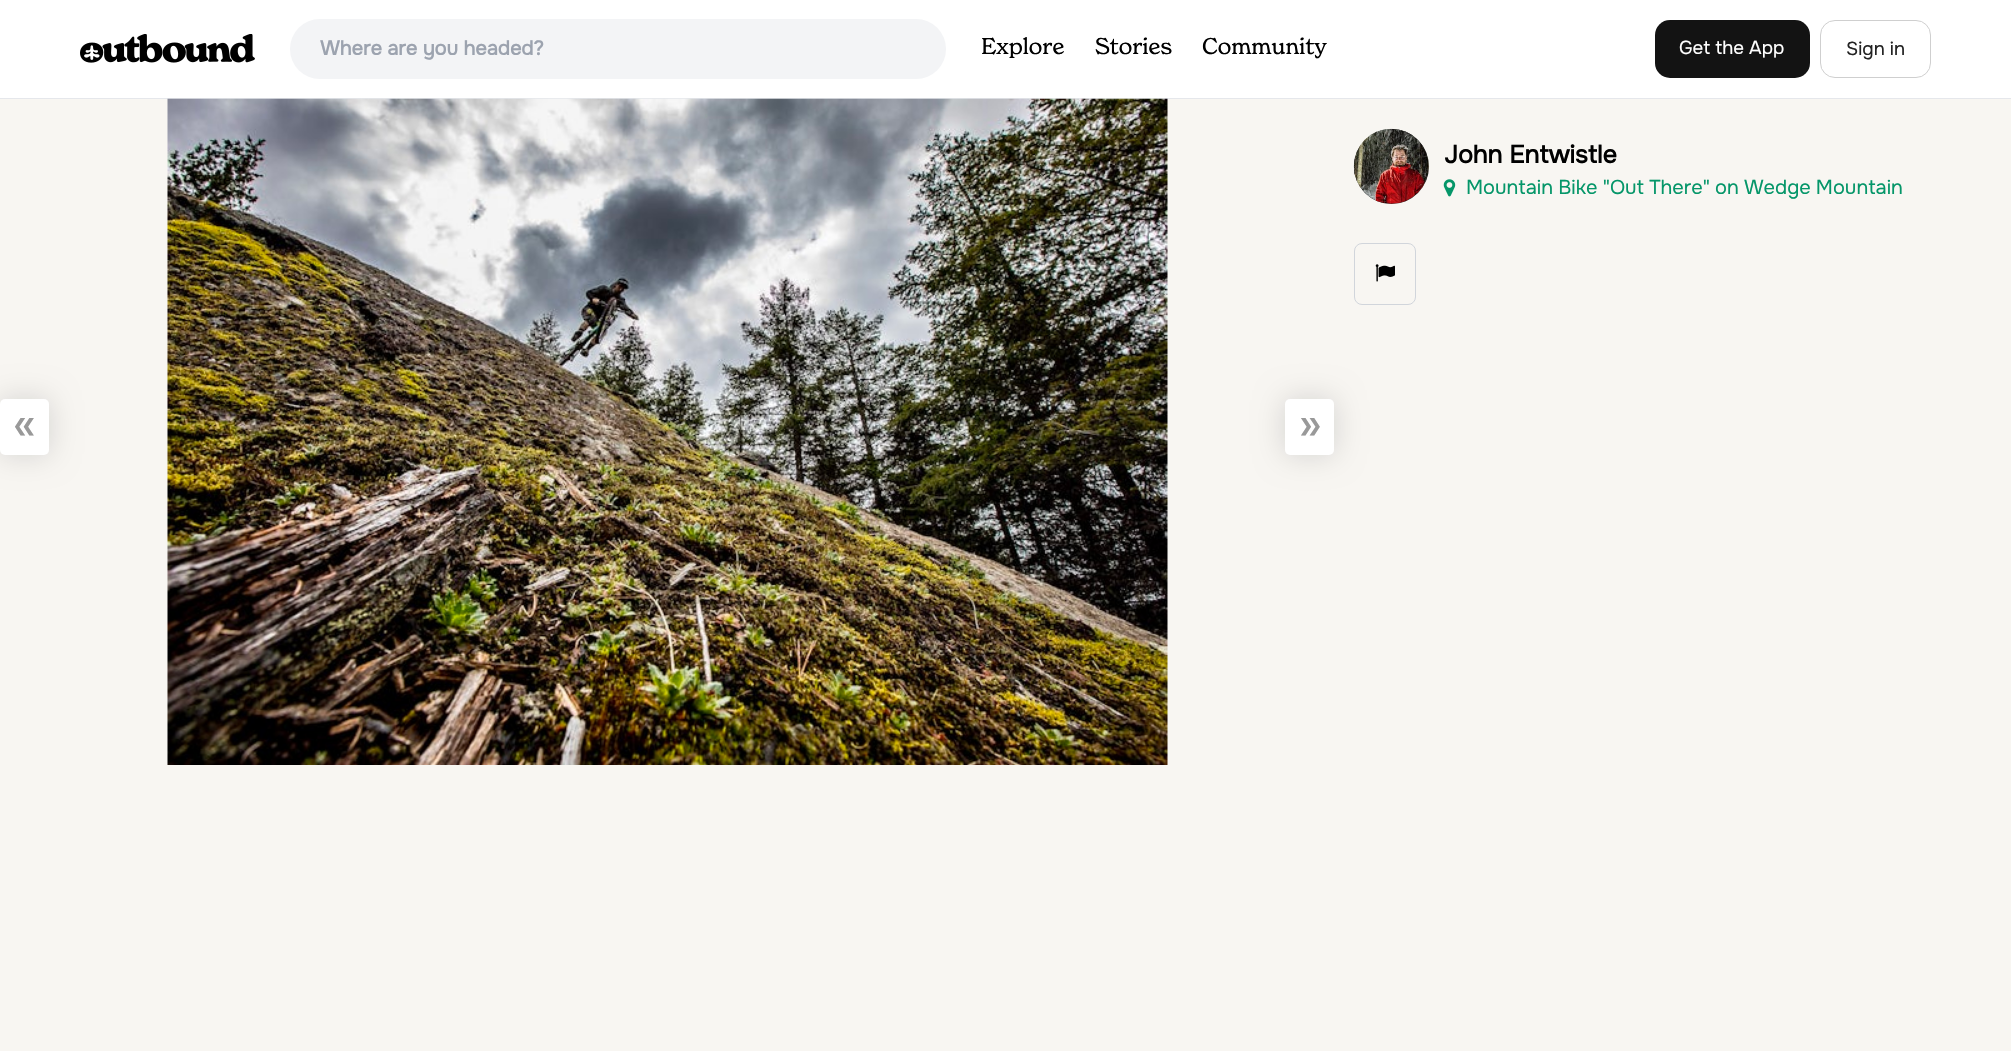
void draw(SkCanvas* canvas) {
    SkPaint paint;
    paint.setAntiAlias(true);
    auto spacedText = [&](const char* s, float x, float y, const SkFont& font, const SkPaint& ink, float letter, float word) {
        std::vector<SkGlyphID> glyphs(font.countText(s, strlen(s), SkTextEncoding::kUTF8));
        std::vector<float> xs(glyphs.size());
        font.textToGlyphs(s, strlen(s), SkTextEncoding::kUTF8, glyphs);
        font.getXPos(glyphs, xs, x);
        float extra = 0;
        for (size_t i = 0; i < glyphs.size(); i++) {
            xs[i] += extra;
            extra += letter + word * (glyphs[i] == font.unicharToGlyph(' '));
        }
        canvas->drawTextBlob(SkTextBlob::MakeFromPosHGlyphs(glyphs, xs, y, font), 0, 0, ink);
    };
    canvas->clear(0xFFF8F6F2);
    paint.setColor(0xFFFFFFFF);
    canvas->drawRect(SkRect::MakeXYWH(0, 0, 2011, 98), paint);
    paint.setColor(0xFFE5E7EB);
    canvas->drawRect(SkRect::MakeXYWH(0, 98, 2011, 1), paint);
    canvas->drawImageRect(SkImages::DeferredFromEncodedData(SkData::MakeFromFileName("img1.png")), SkRect::MakeXYWH(80, 34, 175, 29), SkSamplingOptions());
    paint.setColor(0xFFF3F4F6);
    canvas->drawRoundRect(SkRect::MakeXYWH(290, 19, 656, 60), 30, 30, paint);
    SkFont font1(fontMgr->matchFamilyStyle("Onest", SkFontStyle::Bold()), 20);
    font1.setSubpixel(true);
    paint.setColor(0xFF9CA3AF);
    canvas->drawString("Where are you headed?", 320, 55, font1, paint);
    SkFont font2(fontMgr->matchFamilyStyle("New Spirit", SkFontStyle::Normal()), 22.5f);
    font2.setSubpixel(true);
    paint.setColor(0xFF000000);
    canvas->drawString("Explore", 981, 54, font2, paint);
    canvas->drawString("Stories", 1095, 54, font2, paint);
    canvas->drawString("Community", 1202, 54, font2, paint);
    paint.setColor(0xFF131313);
    canvas->drawRoundRect(SkRect::MakeXYWH(1655, 20, 155, 58), 15, 15, paint);
    SkFont font3(fontMgr->matchFamilyStyle("Onest", SkFontStyle::Normal()), 18.75f);
    font3.setSubpixel(true);
    paint.setColor(0xFFFFFFFF);
    canvas->drawString("Get the App", 1679, 54, font3, paint);
    paint.setStyle(SkPaint::kStroke_Style);
    paint.setStrokeWidth(1);
    paint.setColor(0xFFCFCFCF);
    canvas->drawRoundRect(SkRect::MakeXYWH(1820.5f, 20.5f, 110, 57), 14.5f, 14.5f, paint);
    paint.setStyle(SkPaint::kFill_Style);
    paint.setColor(0xFF232323);
    canvas->drawString("Sign in", 1846, 55, font3, paint);
    paint.setColor(0xFF333333);
    canvas->drawCircle(1391.5f, 166.5f, 37.5f, paint);
    canvas->drawImageRect(SkImages::DeferredFromEncodedData(SkData::MakeFromFileName("img2.png")), SkRect::MakeXYWH(1353, 128, 76, 76), SkSamplingOptions());
    SkFont font4(fontMgr->matchFamilyStyle("Onest", SkFontStyle::Bold()), 25);
    font4.setSubpixel(true);
    paint.setColor(0xFF000000);
    canvas->drawString("John Entwistle", 1444, 163, font4, paint);
    canvas->drawImageRect(SkImages::DeferredFromEncodedData(SkData::MakeFromFileName("img3.png")), SkRect::MakeXYWH(1443, 179, 13, 18), SkSamplingOptions());
    SkFont font5(fontMgr->matchFamilyStyle("Onest", SkFontStyle::Normal()), 20);
    font5.setSubpixel(true);
    paint.setColor(0xFF059669);
    spacedText("Mountain Bike \"Out There\" on Wedge Mountain", 1466, 194, font5, paint, 0, -0.25f);
    paint.setStyle(SkPaint::kStroke_Style);
    paint.setColor(0xFFD1D5DB);
    canvas->drawRoundRect(SkRect::MakeXYWH(1354.5f, 243.5f, 61, 61), 7.5f, 7.5f, paint);
    canvas->drawImageRect(SkImages::DeferredFromEncodedData(SkData::MakeFromFileName("img4.png")), SkRect::MakeXYWH(1375, 264, 20, 18), SkSamplingOptions());
    paint.setStyle(SkPaint::kFill_Style);
    paint.setColor(0x26000000);
    paint.setMaskFilter(SkMaskFilter::MakeBlur(kNormal_SkBlurStyle, 15));
    canvas->drawRoundRect(SkRect::MakeXYWH(0, 399, 49, 56), 5, 5, paint);
    paint.setMaskFilter(nullptr);
    paint.setColor(0xFFFFFFFF);
    canvas->drawRoundRect(SkRect::MakeXYWH(0, 399, 49, 56), 5, 5, paint);
    SkFont font6(fontMgr->matchFamilyStyle("Onest", SkFontStyle::Normal()), 50);
    font6.setSubpixel(true);
    paint.setColor(0xFF999999);
    canvas->drawString("«", 13, 440, font6, paint);
    canvas->drawImageRect(SkImages::DeferredFromEncodedData(SkData::MakeFromFileName("img5.png")), SkRect::MakeXYWH(167, 98, 1001, 667), SkSamplingOptions());
    paint.setColor(0x26000000);
    paint.setMaskFilter(SkMaskFilter::MakeBlur(kNormal_SkBlurStyle, 15));
    canvas->drawRoundRect(SkRect::MakeXYWH(1285, 399, 49, 56), 5, 5, paint);
    paint.setMaskFilter(nullptr);
    paint.setColor(0xFFFFFFFF);
    canvas->drawRoundRect(SkRect::MakeXYWH(1285, 399, 49, 56), 5, 5, paint);
    paint.setColor(0xFF999999);
    canvas->drawString("»", 1298, 440, font6, paint);
}
